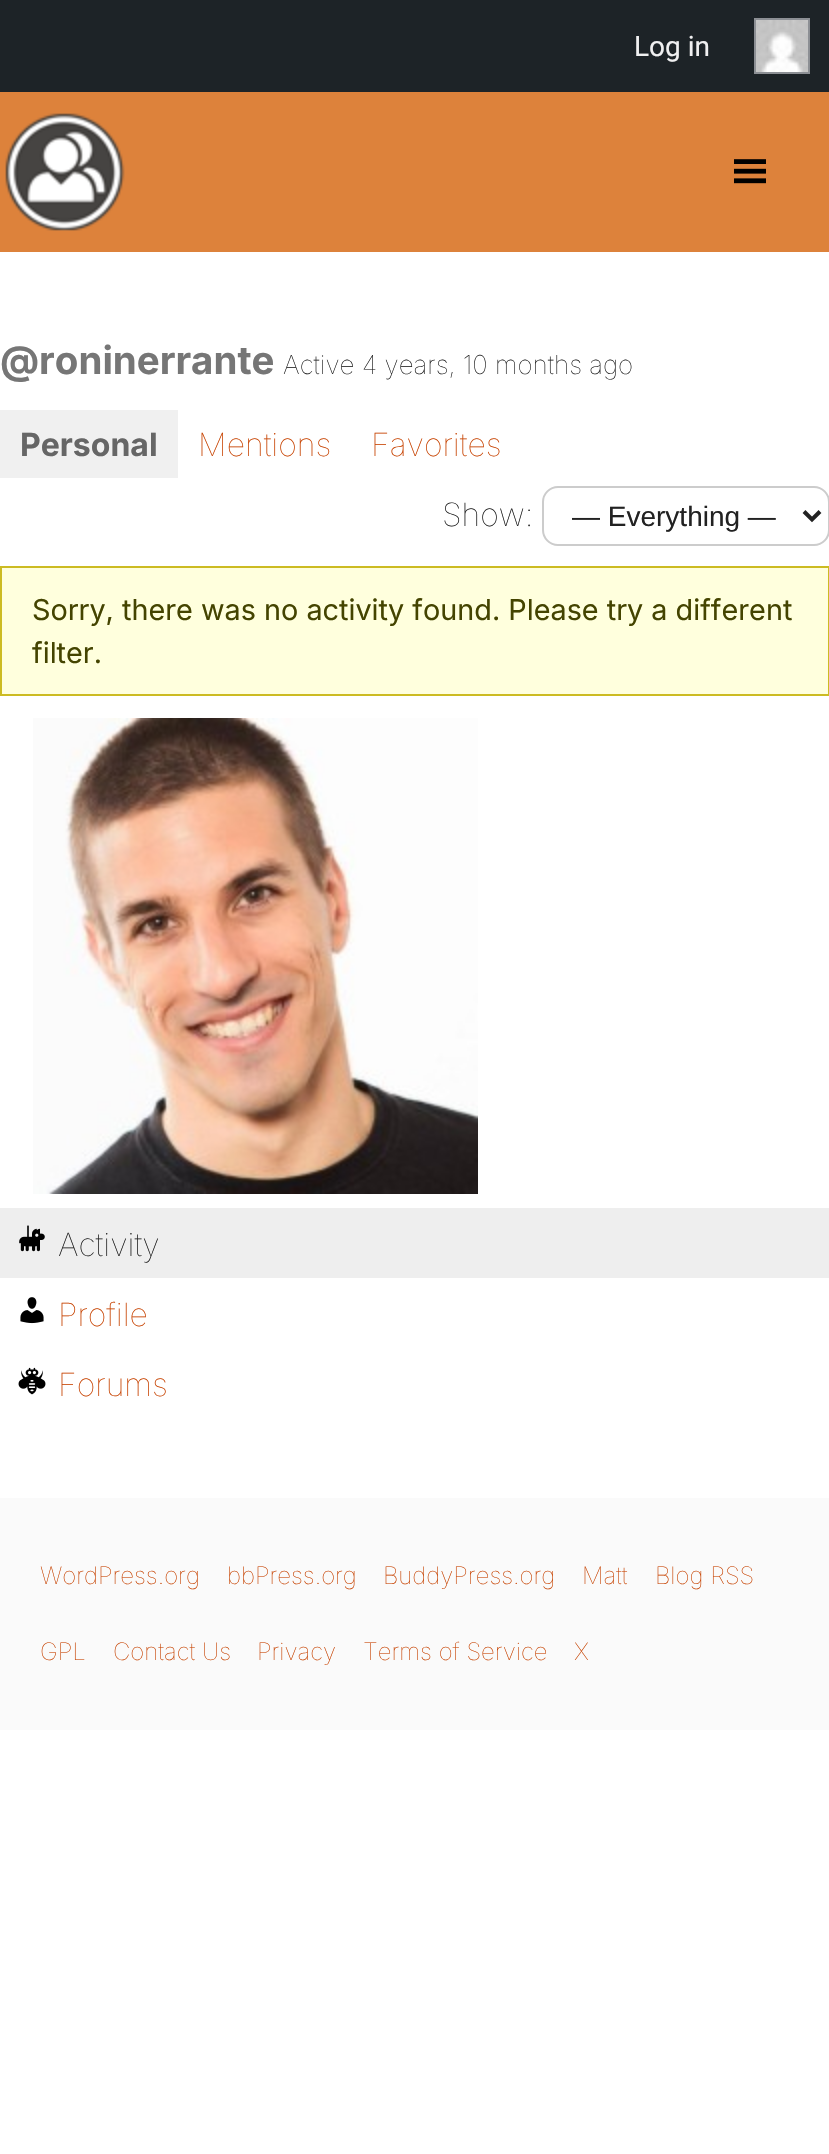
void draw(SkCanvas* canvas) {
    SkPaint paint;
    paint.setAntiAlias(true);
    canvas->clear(0xFFFFFFFF);
    paint.setColor(0xFF1D2327);
    canvas->drawRect(SkRect::MakeXYWH(0, 0, 829, 92), paint);
    SkFont font1(fontMgr->matchFamilyStyle("Roboto", SkFontStyle::Normal()), 28);
    font1.setSubpixel(true);
    paint.setColor(0xFFF0F0F1);
    canvas->drawString("Log in", 634, 56, font1, paint);
    paint.setStyle(SkPaint::kStroke_Style);
    paint.setStrokeWidth(2);
    paint.setColor(0xFF8C8F94);
    canvas->drawRect(SkRect::MakeXYWH(755, 19, 54, 54), paint);
    canvas->drawImageRect(SkImages::DeferredFromEncodedData(SkData::MakeFromFileName("img1.png")), SkRect::MakeXYWH(756, 20, 52, 52), SkSamplingOptions());
    paint.setStyle(SkPaint::kFill_Style);
    paint.setColor(0xFFDD823B);
    canvas->drawRect(SkRect::MakeXYWH(0, 92, 829, 160), paint);
    canvas->drawImageRect(SkImages::DeferredFromEncodedData(SkData::MakeFromFileName("img2.png")), SkRect::MakeXYWH(5, 113, 120, 118), SkSamplingOptions());
    canvas->drawImageRect(SkImages::DeferredFromEncodedData(SkData::MakeFromFileName("img3.png")), SkRect::MakeXYWH(734, 159, 32, 25), SkSamplingOptions());
    SkFont font2(fontMgr->matchFamilyStyle("Inter", SkFontStyle::Bold()), 38.5f);
    font2.setSubpixel(true);
    paint.setColor(0xFF767676);
    canvas->drawString("@roninerrante", 0, 374, font2, paint);
    SkFont font3(fontMgr->matchFamilyStyle("Inter", SkFontStyle(100, SkFontStyle::kNormal_Width, SkFontStyle::kUpright_Slant)), 26);
    font3.setSubpixel(true);
    paint.setColor(0xFF222222);
    canvas->drawString("Active 4 years, 10 months ago", 283, 374, font3, paint);
    paint.setColor(0xFFF0F0F0);
    canvas->drawRect(SkRect::MakeXYWH(0, 410, 178, 68), paint);
    SkFont font4(fontMgr->matchFamilyStyle("Inter", SkFontStyle::Bold()), 32);
    font4.setSubpixel(true);
    paint.setColor(0xFF666666);
    canvas->drawString("Personal", 20, 456, font4, paint);
    SkFont font5(fontMgr->matchFamilyStyle("Inter", SkFontStyle(100, SkFontStyle::kNormal_Width, SkFontStyle::kUpright_Slant)), 32);
    font5.setSubpixel(true);
    paint.setColor(0xFFC74200);
    canvas->drawString("Mentions", 198, 456, font5, paint);
    canvas->drawString("Favorites", 371, 456, font5, paint);
    paint.setColor(0xFF222222);
    canvas->drawString("Show:", 442, 526, font5, paint);
    paint.setStyle(SkPaint::kStroke_Style);
    paint.setColor(0xFFCCCCCC);
    canvas->drawRoundRect(SkRect::MakeXYWH(543, 487, 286, 58), 15, 15, paint);
    paint.setStrokeWidth(4);
    paint.setColor(0xFF222222);
    canvas->drawPath(SkPathBuilder().moveTo(804, 511.5f).lineTo(812, 519.5f).lineTo(820, 511.5f).detach(), paint);
    SkFont font6(fontMgr->matchFamilyStyle("Liberation Sans", SkFontStyle::Normal()), 28);
    font6.setSubpixel(true);
    paint.setStyle(SkPaint::kFill_Style);
    canvas->drawString("— Everything —", 572, 526, font6, paint);
    paint.setColor(0xFFFFFFDD);
    canvas->drawRect(SkRect::MakeXYWH(1, 567, 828, 128), paint);
    paint.setStyle(SkPaint::kStroke_Style);
    paint.setStrokeWidth(2);
    paint.setColor(0xFFCCBB22);
    canvas->drawRect(SkRect::MakeXYWH(1, 567, 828, 128), paint);
    SkFont font7(fontMgr->matchFamilyStyle("Inter", SkFontStyle::Normal()), 28.8f);
    font7.setSubpixel(true);
    paint.setStyle(SkPaint::kFill_Style);
    paint.setColor(0xFF444400);
    canvas->drawString("Sorry, there was no activity found. Please try a different", 32, 620, font7, paint);
    canvas->drawString("filter.", 32, 663, font7, paint);
    canvas->drawImageRect(SkImages::DeferredFromEncodedData(SkData::MakeFromFileName("img4.png")), SkRect::MakeXYWH(33, 718, 445, 476), SkSamplingOptions());
    paint.setColor(0xFFEEEEEE);
    canvas->drawRect(SkRect::MakeXYWH(0, 1208, 829, 70), paint);
    canvas->drawImageRect(SkImages::DeferredFromEncodedData(SkData::MakeFromFileName("img5.png")), SkRect::MakeXYWH(19, 1225, 26, 27), SkSamplingOptions());
    paint.setColor(0xFF222222);
    canvas->drawString("Activity", 58, 1256, font5, paint);
    canvas->drawImageRect(SkImages::DeferredFromEncodedData(SkData::MakeFromFileName("img6.png")), SkRect::MakeXYWH(20, 1297, 24, 27), SkSamplingOptions());
    paint.setColor(0xFFC74200);
    canvas->drawString("Profile", 58, 1326, font5, paint);
    canvas->drawImageRect(SkImages::DeferredFromEncodedData(SkData::MakeFromFileName("img7.png")), SkRect::MakeXYWH(18, 1367, 28, 28), SkSamplingOptions());
    canvas->drawString("Forums", 58, 1396, font5, paint);
    paint.setColor(0xFFFAFAFA);
    canvas->drawRect(SkRect::MakeXYWH(0, 1498, 829, 232), paint);
    SkFont font8(fontMgr->matchFamilyStyle("Inter", SkFontStyle(100, SkFontStyle::kNormal_Width, SkFontStyle::kUpright_Slant)), 24);
    font8.setSubpixel(true);
    paint.setColor(0xFFC74200);
    canvas->drawString("WordPress.org", 40, 1584, font8, paint);
    canvas->drawString("bbPress.org", 227, 1584, font8, paint);
    canvas->drawString("BuddyPress.org", 383, 1584, font8, paint);
    canvas->drawString("Matt", 582, 1584, font8, paint);
    canvas->drawString("Blog RSS", 655, 1584, font8, paint);
    canvas->drawString("GPL", 40, 1660, font8, paint);
    canvas->drawString("Contact Us", 113, 1660, font8, paint);
    canvas->drawString("Privacy", 257, 1660, font8, paint);
    canvas->drawString("Terms of Service", 363, 1660, font8, paint);
    canvas->drawString("X", 574, 1660, font8, paint);
}
